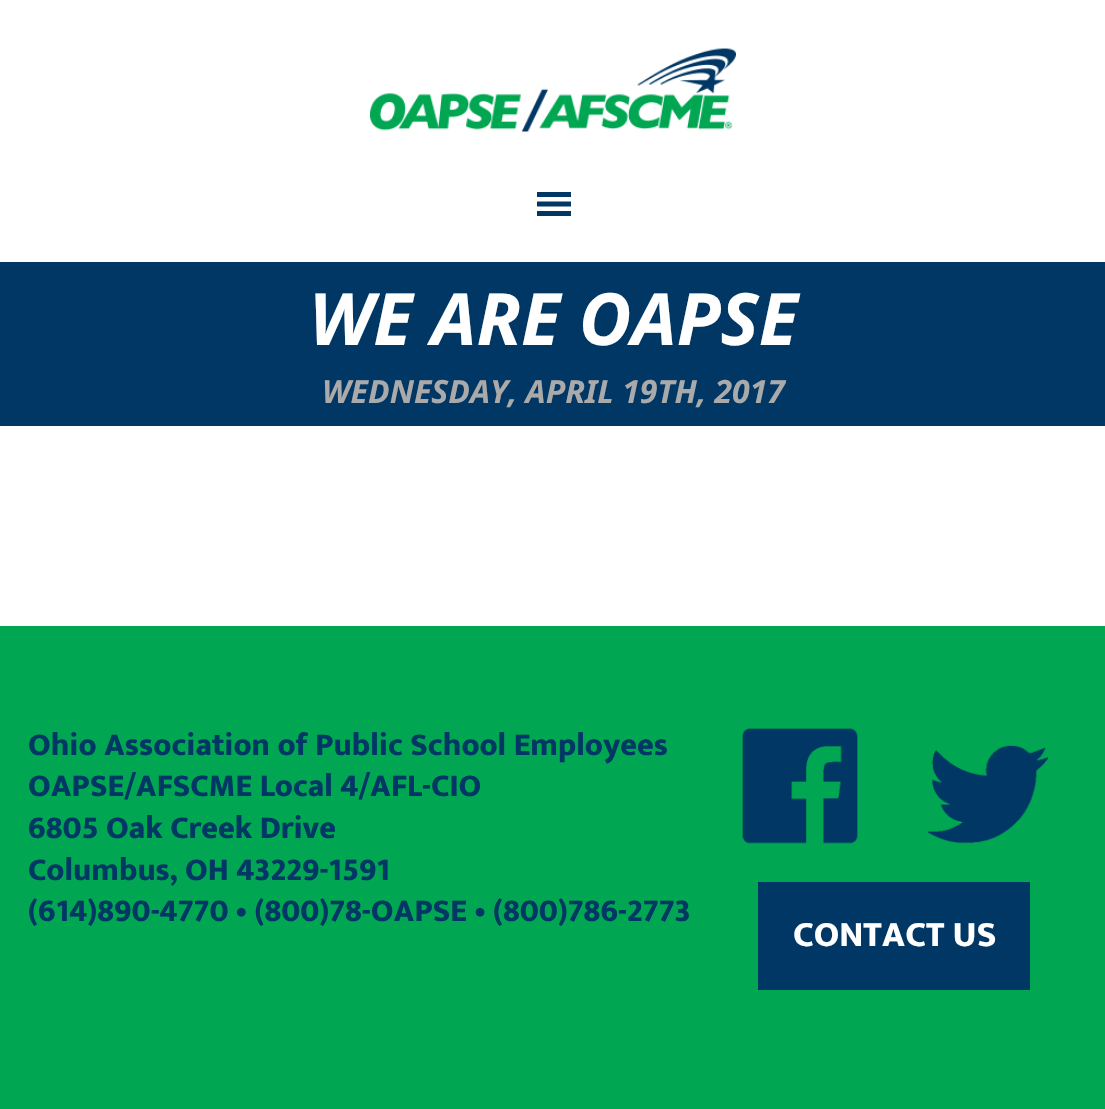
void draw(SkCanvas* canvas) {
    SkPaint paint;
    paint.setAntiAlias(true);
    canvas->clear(0xFFFFFFFF);
    canvas->drawImageRect(SkImages::DeferredFromEncodedData(SkData::MakeFromFileName("img1.png")), SkRect::MakeXYWH(370, 48, 366, 84), SkSamplingOptions());
    paint.setColor(0xFF003764);
    canvas->drawPath(SkPathBuilder().moveTo(537, 216).lineTo(571, 216).lineTo(571, 211).lineTo(537, 211).close().moveTo(537, 192).lineTo(537, 197).lineTo(571, 197).lineTo(571, 192).close().moveTo(537, 206.5f).lineTo(571, 206.5f).lineTo(571, 201.5f).lineTo(537, 201.5f).close().detach(), paint);
    canvas->drawRect(SkRect::MakeXYWH(0, 262, 1105, 164), paint);
    SkFont font1(fontMgr->matchFamilyStyle("Noto Sans", SkFontStyle::BoldItalic()), 72);
    font1.setSubpixel(true);
    paint.setColor(0xFFFFFFFF);
    canvas->drawString("WE ARE OAPSE", 309, 345, font1, paint);
    SkFont font2(fontMgr->matchFamilyStyle("Noto Sans", SkFontStyle::BoldItalic()), 32);
    font2.setSubpixel(true);
    paint.setColor(0xFFAAAAAA);
    canvas->drawString("WEDNESDAY, APRIL 19TH, 2017", 322, 403, font2, paint);
    paint.setColor(0xFF00A651);
    canvas->drawRect(SkRect::MakeXYWH(0, 626, 1105, 483), paint);
    SkFont font3(fontMgr->matchFamilyStyle("Ek Mukta", SkFontStyle(800, SkFontStyle::kNormal_Width, SkFontStyle::kUpright_Slant)), 32);
    font3.setSubpixel(true);
    paint.setColor(0xFF003764);
    canvas->drawString("Ohio Association of Public School Employees", 28, 755, font3, paint);
    canvas->drawString("OAPSE/AFSCME Local 4/AFL-CIO", 28, 796, font3, paint);
    canvas->drawString("6805 Oak Creek Drive", 28, 838, font3, paint);
    canvas->drawString("Columbus, OH 43229-1591", 28, 880, font3, paint);
    canvas->drawString("(614)890-4770 • (800)78-OAPSE • (800)786-2773", 28, 921, font3, paint);
    canvas->drawImageRect(SkImages::DeferredFromEncodedData(SkData::MakeFromFileName("img2.png")), SkRect::MakeXYWH(742, 728, 116, 116), SkSamplingOptions());
    canvas->drawImageRect(SkImages::DeferredFromEncodedData(SkData::MakeFromFileName("img3.png")), SkRect::MakeXYWH(928, 745, 120, 99), SkSamplingOptions());
    canvas->drawRect(SkRect::MakeXYWH(758, 882, 272, 108), paint);
    SkFont font4(fontMgr->matchFamilyStyle("Ek Mukta", SkFontStyle(800, SkFontStyle::kNormal_Width, SkFontStyle::kUpright_Slant)), 36);
    font4.setSubpixel(true);
    paint.setColor(0xFFFFFFFF);
    canvas->drawString("CONTACT US", 793, 946, font4, paint);
}
